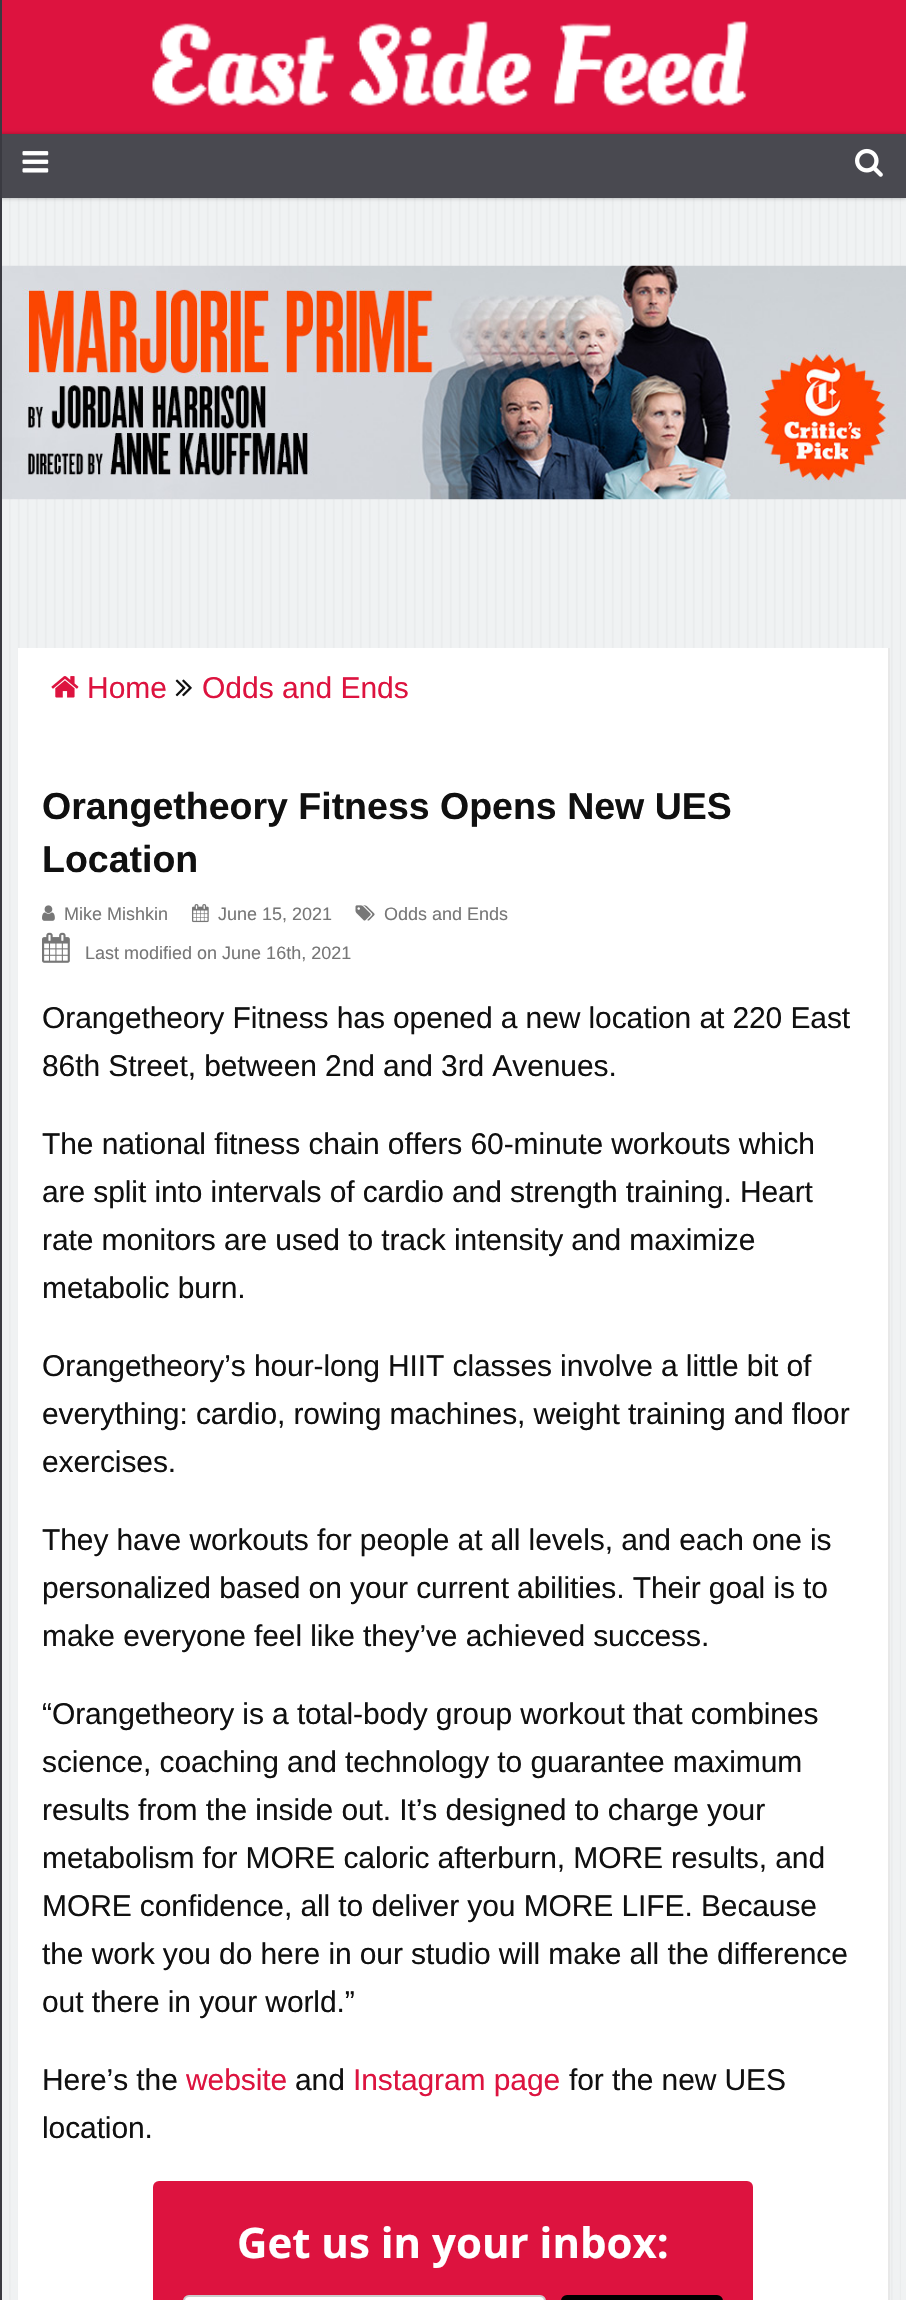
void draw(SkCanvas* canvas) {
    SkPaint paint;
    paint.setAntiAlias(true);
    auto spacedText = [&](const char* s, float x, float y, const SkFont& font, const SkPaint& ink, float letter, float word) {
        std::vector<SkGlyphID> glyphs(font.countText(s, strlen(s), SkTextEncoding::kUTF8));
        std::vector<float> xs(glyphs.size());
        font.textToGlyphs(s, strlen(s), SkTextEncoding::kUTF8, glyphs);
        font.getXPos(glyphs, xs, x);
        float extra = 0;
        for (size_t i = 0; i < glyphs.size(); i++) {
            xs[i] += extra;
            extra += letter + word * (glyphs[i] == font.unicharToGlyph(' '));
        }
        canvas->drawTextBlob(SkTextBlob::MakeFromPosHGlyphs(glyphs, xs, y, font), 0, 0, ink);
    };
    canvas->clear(0xFFF0F2F3);
    canvas->drawImageRect(SkImages::DeferredFromEncodedData(SkData::MakeFromFileName("img1.png")), SkRect::MakeXYWH(9, 198, 892, 2102), SkSamplingOptions());
    paint.setColor(0xFFDD133F);
    canvas->drawRect(SkRect::MakeXYWH(2, 0, 904, 134), paint);
    paint.setColor(0x4D000000);
    paint.setMaskFilter(SkMaskFilter::MakeBlur(kNormal_SkBlurStyle, 2));
    canvas->drawRect(SkRect::MakeXYWH(0, 134, 906, 64), paint);
    paint.setMaskFilter(nullptr);
    paint.setColor(0xFF494950);
    canvas->drawRect(SkRect::MakeXYWH(2, 134, 904, 64), paint);
    paint.setColor(0xFF3A3A41);
    canvas->drawRect(SkRect::MakeXYWH(0, 0, 2, 2300), paint);
    canvas->drawImageRect(SkImages::DeferredFromEncodedData(SkData::MakeFromFileName("img2.png")), SkRect::MakeXYWH(22, 151, 27, 22), SkSamplingOptions());
    canvas->drawImageRect(SkImages::DeferredFromEncodedData(SkData::MakeFromFileName("img3.png")), SkRect::MakeXYWH(855, 148, 28, 29), SkSamplingOptions());
    canvas->drawImageRect(SkImages::DeferredFromEncodedData(SkData::MakeFromFileName("img4.png")), SkRect::MakeXYWH(152, 21, 597, 85), SkSamplingOptions());
    canvas->drawImageRect(SkImages::DeferredFromEncodedData(SkData::MakeFromFileName("img5.png")), SkRect::MakeXYWH(2, 265, 904, 235), SkSamplingOptions());
    paint.setColor(0xFFFFFFFF);
    canvas->drawRect(SkRect::MakeXYWH(18, 648, 870, 1652), paint);
    canvas->drawImageRect(SkImages::DeferredFromEncodedData(SkData::MakeFromFileName("img6.png")), SkRect::MakeXYWH(51, 676, 28, 22), SkSamplingOptions());
    SkFont font1(fontMgr->matchFamilyStyle("Liberation Sans", SkFontStyle::Normal()), 30);
    font1.setSubpixel(true);
    paint.setColor(0xFFDD133F);
    canvas->drawString("Home", 87, 698, font1, paint);
    canvas->drawImageRect(SkImages::DeferredFromEncodedData(SkData::MakeFromFileName("img7.png")), SkRect::MakeXYWH(175, 679, 17, 18), SkSamplingOptions());
    canvas->drawString("Odds and Ends", 202, 698, font1, paint);
    SkFont font2(fontMgr->matchFamilyStyle("Liberation Sans", SkFontStyle::Bold()), 37.5f);
    font2.setSubpixel(true);
    paint.setColor(0xFF101010);
    canvas->drawString("Orangetheory Fitness Opens New UES", 42, 819, font2, paint);
    canvas->drawString("Location", 42, 872, font2, paint);
    canvas->drawImageRect(SkImages::DeferredFromEncodedData(SkData::MakeFromFileName("img8.png")), SkRect::MakeXYWH(42, 905, 13, 16), SkSamplingOptions());
    SkFont font3(fontMgr->matchFamilyStyle("Liberation Sans", SkFontStyle::Normal()), 18);
    font3.setSubpixel(true);
    paint.setColor(0xFF777777);
    canvas->drawString("Mike Mishkin", 64, 920, font3, paint);
    canvas->drawImageRect(SkImages::DeferredFromEncodedData(SkData::MakeFromFileName("img9.png")), SkRect::MakeXYWH(192, 904, 17, 19), SkSamplingOptions());
    canvas->drawString("June 15, 2021", 218, 920, font3, paint);
    canvas->drawImageRect(SkImages::DeferredFromEncodedData(SkData::MakeFromFileName("img10.png")), SkRect::MakeXYWH(355, 905, 20, 16), SkSamplingOptions());
    canvas->drawString("Odds and Ends", 384, 920, font3, paint);
    canvas->drawImageRect(SkImages::DeferredFromEncodedData(SkData::MakeFromFileName("img11.png")), SkRect::MakeXYWH(42, 932, 28, 31), SkSamplingOptions());
    canvas->drawString("Last modified on June 16th, 2021", 85, 959, font3, paint);
    paint.setColor(0xFF101010);
    spacedText("Orangetheory Fitness has opened a new location at 220 East", 42, 1028, font1, paint, -0.1f, 0);
    spacedText("86th Street, between 2nd and 3rd Avenues.", 42, 1076, font1, paint, -0.1f, 0);
    spacedText("The national fitness chain offers 60-minute workouts which", 42, 1154, font1, paint, -0.1f, 0);
    spacedText("are split into intervals of cardio and strength training. Heart", 42, 1202, font1, paint, -0.1f, 0);
    spacedText("rate monitors are used to track intensity and maximize", 42, 1250, font1, paint, -0.1f, 0);
    spacedText("metabolic burn.", 42, 1298, font1, paint, -0.1f, 0);
    spacedText("Orangetheory’s hour-long HIIT classes involve a little bit of", 42, 1376, font1, paint, -0.1f, 0);
    spacedText("everything: cardio, rowing machines, weight training and floor", 42, 1424, font1, paint, -0.1f, 0);
    spacedText("exercises.", 42, 1472, font1, paint, -0.1f, 0);
    spacedText("They have workouts for people at all levels, and each one is", 42, 1550, font1, paint, -0.1f, 0);
    spacedText("personalized based on your current abilities. Their goal is to", 42, 1598, font1, paint, -0.1f, 0);
    spacedText("make everyone feel like they’ve achieved success.", 42, 1646, font1, paint, -0.1f, 0);
    spacedText("“Orangetheory is a total-body group workout that combines", 42, 1724, font1, paint, -0.1f, 0);
    spacedText("science, coaching and technology to guarantee maximum", 42, 1772, font1, paint, -0.1f, 0);
    spacedText("results from the inside out. It’s designed to charge your", 42, 1820, font1, paint, -0.1f, 0);
    spacedText("metabolism for MORE caloric afterburn, MORE results, and", 42, 1868, font1, paint, -0.1f, 0);
    spacedText("MORE confidence, all to deliver you MORE LIFE. Because", 42, 1916, font1, paint, -0.1f, 0);
    spacedText("the work you do here in our studio will make all the difference", 42, 1964, font1, paint, -0.1f, 0);
    spacedText("out there in your world.”", 42, 2012, font1, paint, -0.1f, 0);
    spacedText("Here’s the", 42, 2090, font1, paint, -0.1f, 0);
    paint.setColor(0xFFDD133F);
    spacedText("website", 186, 2090, font1, paint, -0.1f, 0);
    paint.setColor(0xFF101010);
    spacedText("and", 295, 2090, font1, paint, -0.1f, 0);
    paint.setColor(0xFFDD133F);
    spacedText("Instagram page", 353, 2090, font1, paint, -0.1f, 0);
    paint.setColor(0xFF101010);
    spacedText("for the new UES", 569, 2090, font1, paint, -0.1f, 0);
    spacedText("location.", 42, 2138, font1, paint, -0.1f, 0);
    paint.setColor(0xFFDD133F);
    canvas->drawRoundRect(SkRect::MakeXYWH(153, 2181, 600, 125), 6, 6, paint);
    SkFont font4(fontMgr->matchFamilyStyle("Open Sans", SkFontStyle::Bold()), 42);
    font4.setSubpixel(true);
    paint.setColor(0xFFFFFFFF);
    canvas->drawString("Get us in your inbox:", 237, 2258, font4, paint);
    canvas->drawRoundRect(SkRect::MakeXYWH(184, 2296, 361, 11), 5, 5, paint);
    paint.setStyle(SkPaint::kStroke_Style);
    paint.setStrokeWidth(2);
    paint.setColor(0xFFCCCCCC);
    canvas->drawRoundRect(SkRect::MakeXYWH(184, 2296, 361, 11), 5, 5, paint);
    paint.setStyle(SkPaint::kFill_Style);
    paint.setColor(0xFF000000);
    canvas->drawRoundRect(SkRect::MakeXYWH(562, 2296, 160, 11), 5, 5, paint);
    paint.setStyle(SkPaint::kStroke_Style);
    canvas->drawRoundRect(SkRect::MakeXYWH(562, 2296, 160, 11), 5, 5, paint);
    paint.setStyle(SkPaint::kFill_Style);
    paint.setColor(0xFFE8E8E8);
    canvas->drawRect(SkRect::MakeXYWH(888, 648, 2, 1652), paint);
}
